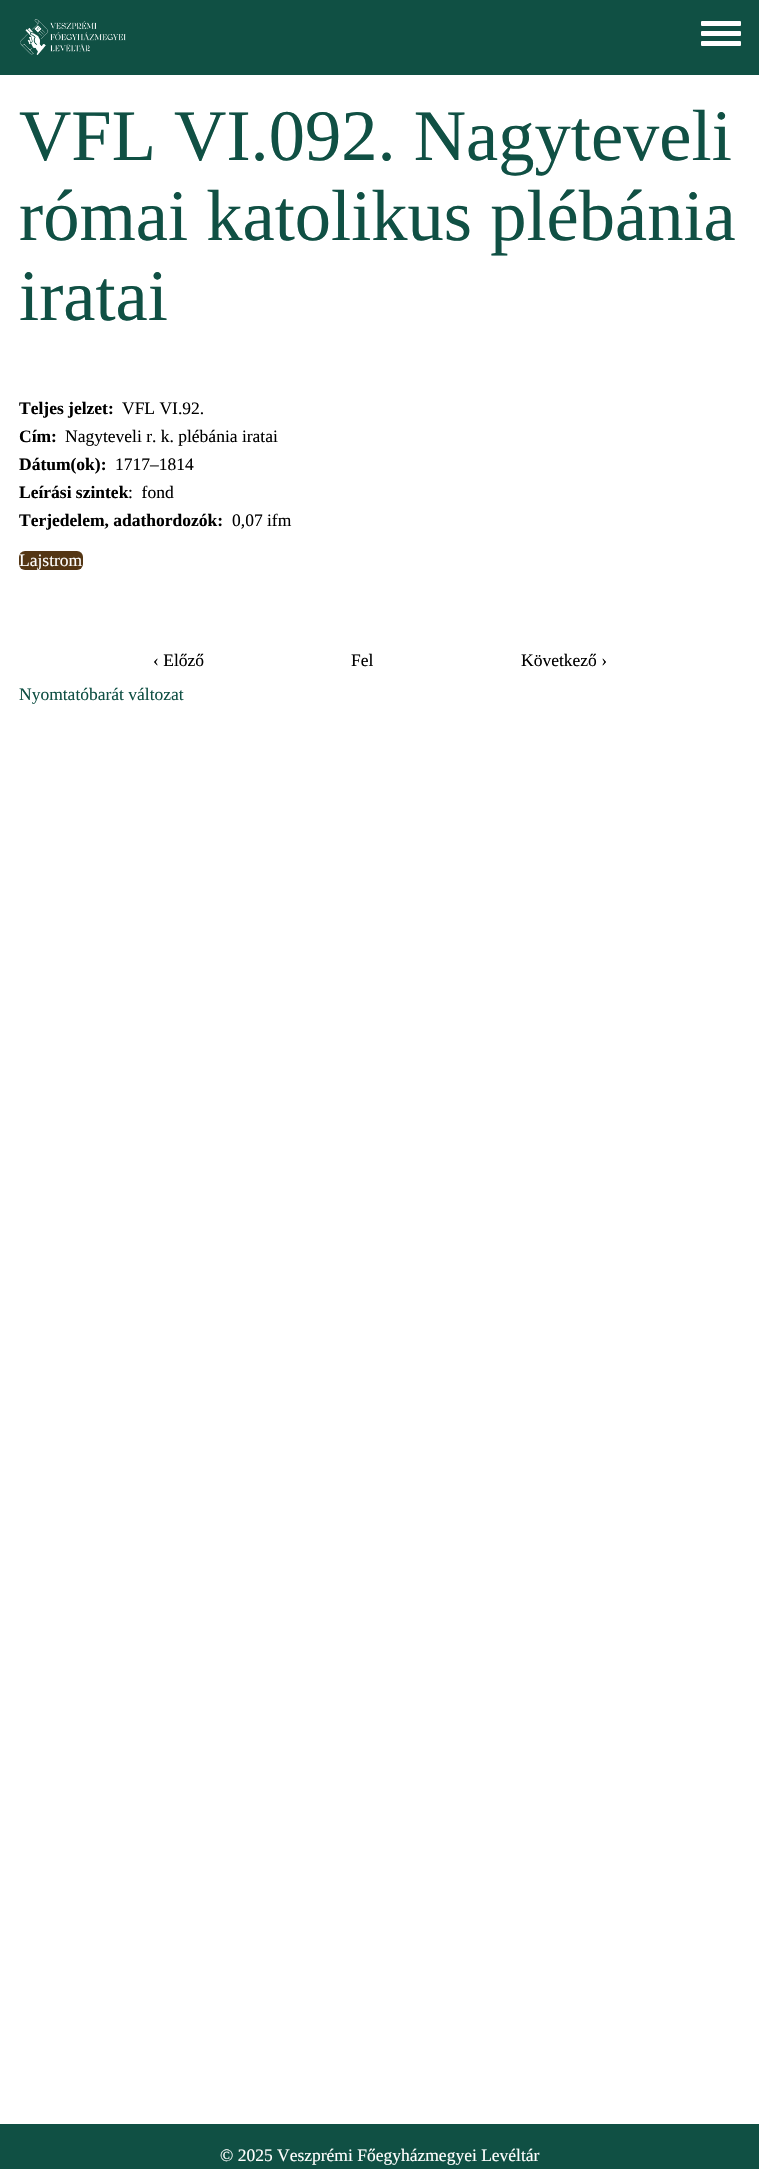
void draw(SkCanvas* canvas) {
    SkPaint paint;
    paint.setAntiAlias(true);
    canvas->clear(0xFFFFFFFF);
    paint.setColor(0xFF105044);
    canvas->drawRect(SkRect::MakeXYWH(0, 0, 759, 75), paint);
    canvas->drawImageRect(SkImages::DeferredFromEncodedData(SkData::MakeFromFileName("img1.png")), SkRect::MakeXYWH(20, 19, 106, 36), SkSamplingOptions());
    paint.setColor(0xFFFFFFFF);
    canvas->drawRoundRect(SkRect::MakeXYWH(701, 31, 40, 5), 1, 1, paint);
    canvas->drawRoundRect(SkRect::MakeXYWH(701, 21, 40, 5), 1, 1, paint);
    canvas->drawRoundRect(SkRect::MakeXYWH(701, 41, 40, 5), 1, 1, paint);
    SkFont font1(fontMgr->matchFamilyStyle("Liberation Serif", SkFontStyle::Normal()), 72.5f);
    font1.setSubpixel(true);
    paint.setColor(0xFF105044);
    canvas->drawString("VFL VI.092. Nagyteveli", 19, 160, font1, paint);
    canvas->drawString("római katolikus plébánia", 19, 240, font1, paint);
    canvas->drawString("iratai", 19, 320, font1, paint);
    SkFont font2(fontMgr->matchFamilyStyle("Liberation Serif", SkFontStyle::Bold()), 17.5f);
    font2.setSubpixel(true);
    paint.setColor(0xFF000000);
    canvas->drawString("Teljes jelzet:", 19, 414, font2, paint);
    SkFont font3(fontMgr->matchFamilyStyle("Liberation Serif", SkFontStyle::Normal()), 17.5f);
    font3.setSubpixel(true);
    canvas->drawString("VFL VI.92.", 122, 414, font3, paint);
    canvas->drawString("Cím:", 19, 442, font2, paint);
    canvas->drawString("Nagyteveli r. k. plébánia iratai", 65, 442, font3, paint);
    canvas->drawString("Dátum(ok):", 19, 470, font2, paint);
    canvas->drawString("1717–1814", 115, 470, font3, paint);
    canvas->drawString("Leírási szintek", 19, 498, font2, paint);
    canvas->drawString(":  fond", 128, 498, font3, paint);
    canvas->drawString("Terjedelem, adathordozók:", 19, 526, font2, paint);
    canvas->drawString("0,07 ifm", 232, 526, font3, paint);
    paint.setColor(0xFF543614);
    canvas->drawRoundRect(SkRect::MakeXYWH(19, 551, 64, 19), 6, 6, paint);
    paint.setColor(0xFFFFFFFE);
    canvas->drawString("Lajstrom", 19, 566, font3, paint);
    paint.setColor(0xFF000000);
    canvas->drawString("‹ Előző", 153, 666, font3, paint);
    canvas->drawString("Fel", 351, 666, font3, paint);
    canvas->drawString("Következő ›", 521, 666, font3, paint);
    paint.setColor(0xFF105044);
    canvas->drawString("Nyomtatóbarát változat", 19, 700, font3, paint);
    canvas->drawRect(SkRect::MakeXYWH(0, 2124, 759, 45), paint);
    paint.setColor(0xFFFFFFFE);
    canvas->drawString("© 2025 Veszprémi Főegyházmegyei Levéltár", 220, 2161, font3, paint);
}
